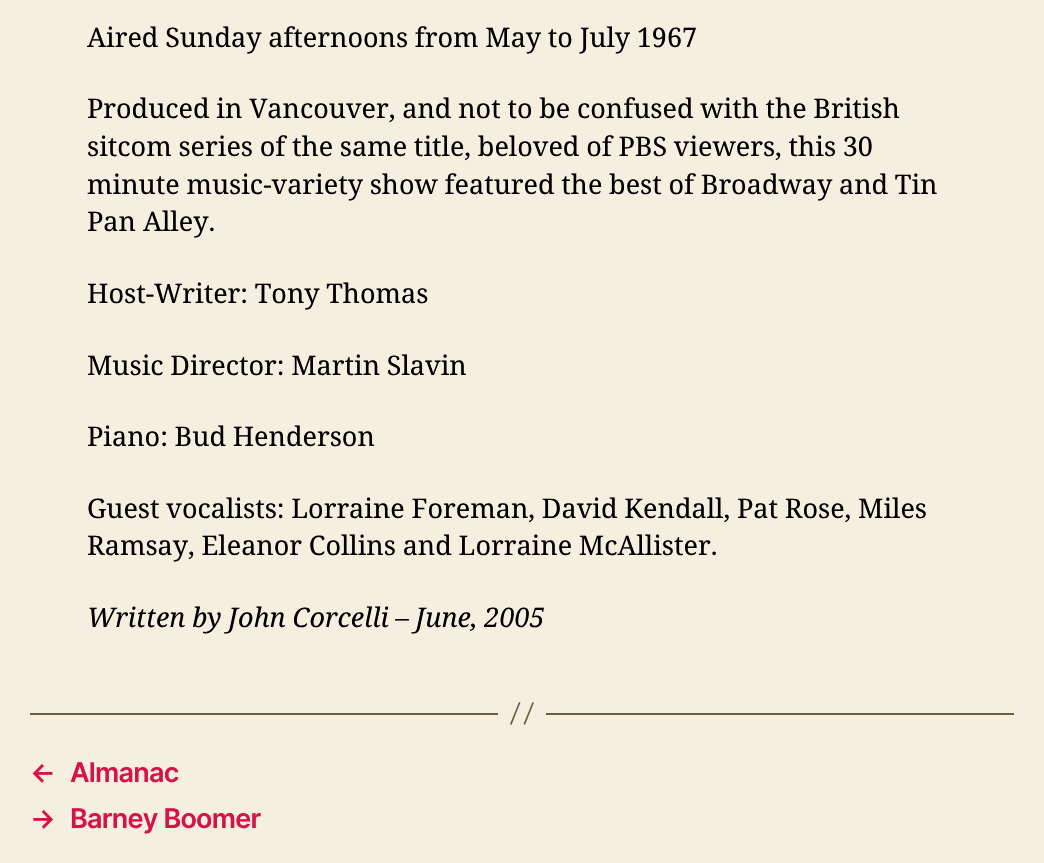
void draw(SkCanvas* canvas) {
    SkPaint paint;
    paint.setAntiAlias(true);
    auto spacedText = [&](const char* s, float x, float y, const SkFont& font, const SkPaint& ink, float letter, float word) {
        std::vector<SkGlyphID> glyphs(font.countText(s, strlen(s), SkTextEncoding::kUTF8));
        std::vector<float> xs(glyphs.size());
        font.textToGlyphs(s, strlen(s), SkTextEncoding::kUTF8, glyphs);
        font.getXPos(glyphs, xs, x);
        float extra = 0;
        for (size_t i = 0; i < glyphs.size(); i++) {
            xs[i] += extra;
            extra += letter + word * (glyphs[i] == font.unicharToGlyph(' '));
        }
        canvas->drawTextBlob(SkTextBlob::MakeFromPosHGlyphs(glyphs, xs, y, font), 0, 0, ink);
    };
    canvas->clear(0xFFF5EFE0);
    SkFont font1(fontMgr->matchFamilyStyle("Noto Serif", SkFontStyle::Normal()), 27);
    font1.setSubpixel(true);
    paint.setColor(0xFF000000);
    spacedText("Aired Sunday afternoons from May to July 1967", 87, 47, font1, paint, 0, -0.3f);
    spacedText("Produced in Vancouver, and not to be confused with the British", 87, 118, font1, paint, 0, -0.3f);
    spacedText("sitcom series of the same title, beloved of PBS viewers, this 30", 87, 156, font1, paint, 0, -0.3f);
    spacedText("minute music-variety show featured the best of Broadway and Tin", 87, 194, font1, paint, 0, -0.3f);
    canvas->drawString("Pan Alley.", 87, 231, font1, paint);
    spacedText("Host-Writer: Tony Thomas", 87, 303, font1, paint, 0, -0.3f);
    spacedText("Music Director: Martin Slavin", 87, 375, font1, paint, 0, -0.3f);
    spacedText("Piano: Bud Henderson", 87, 446, font1, paint, 0, -0.3f);
    spacedText("Guest vocalists: Lorraine Foreman, David Kendall, Pat Rose, Miles", 87, 518, font1, paint, 0, -0.3f);
    spacedText("Ramsay, Eleanor Collins and Lorraine McAllister.", 87, 555, font1, paint, 0, -0.3f);
    SkFont font2(fontMgr->matchFamilyStyle("Noto Serif", SkFontStyle::Italic()), 27);
    font2.setSubpixel(true);
    spacedText("Written by John Corcelli – June, 2005", 87, 627, font2, paint, 0, -0.3f);
    paint.setColor(0xFF69603E);
    canvas->drawRect(SkRect::MakeXYWH(546, 713, 468, 2), paint);
    canvas->drawRect(SkRect::MakeXYWH(30, 713, 468, 2), paint);
    canvas->drawPath(SkPathBuilder().moveTo(519, 702).lineTo(520.5f, 702.5f).lineTo(511.5f, 725).lineTo(510, 724).close().moveTo(532.5f, 702).lineTo(534, 702.5f).lineTo(525, 725).lineTo(523.5f, 724).close().detach(), paint);
    SkFont font3(fontMgr->matchFamilyStyle("Inter", SkFontStyle(600, SkFontStyle::kNormal_Width, SkFontStyle::kUpright_Slant)), 27);
    font3.setSubpixel(true);
    paint.setColor(0xFFD61347);
    spacedText("←", 30, 782, font3, paint, -0.75f, 0);
    spacedText("Almanac", 70, 782, font3, paint, -0.75f, 0);
    spacedText("→", 30, 828, font3, paint, -0.75f, 0);
    spacedText("Barney Boomer", 70, 828, font3, paint, -0.75f, 0);
}
